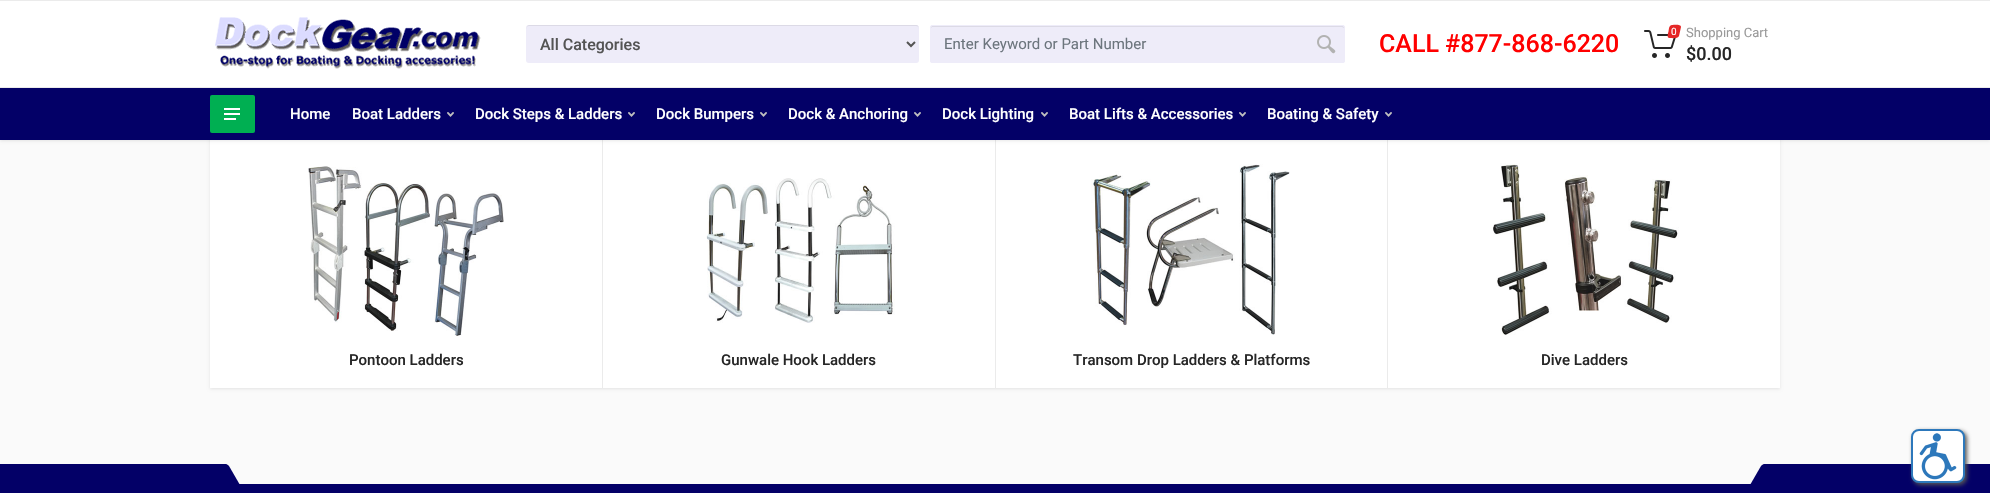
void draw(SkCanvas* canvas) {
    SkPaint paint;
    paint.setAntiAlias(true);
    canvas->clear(0xFFFAFAFA);
    paint.setColor(0x17000000);
    paint.setMaskFilter(SkMaskFilter::MakeBlur(kNormal_SkBlurStyle, 1.5f));
    canvas->drawRect(SkRect::MakeXYWH(210, 133, 1570, 256), paint);
    paint.setMaskFilter(nullptr);
    paint.setColor(0xFFFFFFFF);
    canvas->drawRect(SkRect::MakeXYWH(210, 140, 1570, 248), paint);
    paint.setColor(0xFFEBEBEB);
    canvas->drawRect(SkRect::MakeXYWH(602, 132, 1, 256), paint);
    canvas->drawRect(SkRect::MakeXYWH(995, 132, 1, 256), paint);
    canvas->drawRect(SkRect::MakeXYWH(1387, 132, 1, 256), paint);
    paint.setColor(0x17000000);
    paint.setMaskFilter(SkMaskFilter::MakeBlur(kNormal_SkBlurStyle, 1.5f));
    canvas->drawRect(SkRect::MakeXYWH(0, 1, 1990, 140), paint);
    paint.setMaskFilter(nullptr);
    paint.setColor(0xFFFFFFFF);
    canvas->drawRect(SkRect::MakeXYWH(0, 1, 1990, 86), paint);
    paint.setColor(0xFFEBEBEB);
    canvas->drawRect(SkRect::MakeXYWH(0, 0, 1990, 1), paint);
    canvas->drawImageRect(SkImages::DeferredFromEncodedData(SkData::MakeFromFileName("img1.png")), SkRect::MakeXYWH(215, 17, 266, 52), SkSamplingOptions());
    paint.setColor(0xFFEEECF9);
    canvas->drawRoundRect(SkRect::MakeXYWH(526, 25, 393, 38), 3, 3, paint);
    paint.setColor(0xFFDCDAE6);
    canvas->drawPath(SkPathBuilder().moveTo(529, 26).lineTo(916, 26).cubicTo(918, 26, 919, 27, 919, 29).cubicTo(919, 27, 918, 25, 916, 25).lineTo(529, 25).lineTo(527, 26).lineTo(526, 29).cubicTo(526, 27, 527, 26, 529, 26).close().detach(), paint);
    paint.setStyle(SkPaint::kStroke_Style);
    paint.setStrokeWidth(2);
    paint.setColor(0xFF545454);
    canvas->drawPath(SkPathBuilder().moveTo(907, 42).lineTo(911, 46).lineTo(915, 42).detach(), paint);
    SkFont font1(fontMgr->matchFamilyStyle("Roboto", SkFontStyle(500, SkFontStyle::kNormal_Width, SkFontStyle::kUpright_Slant)), 16);
    font1.setSubpixel(true);
    paint.setStyle(SkPaint::kFill_Style);
    canvas->drawString("All Categories", 540, 50, font1, paint);
    paint.setColor(0xFFEEECF9);
    canvas->drawRoundRect(SkRect::MakeXYWH(930, 25, 415, 38), 2.5f, 2.5f, paint);
    paint.setColor(0xFFDCDAE6);
    canvas->drawPath(SkPathBuilder().moveTo(932, 27).lineTo(1342, 27).lineTo(1344, 28).cubicTo(1344, 27, 1344, 26, 1342, 26).lineTo(932, 26).cubicTo(931, 26, 931, 27, 931, 28).close().detach(), paint);
    paint.setStyle(SkPaint::kStroke_Style);
    paint.setStrokeWidth(1);
    paint.setColor(0xFFEEECF9);
    canvas->drawRoundRect(SkRect::MakeXYWH(930.5f, 25.5f, 414, 37), 2, 2, paint);
    SkFont font2(fontMgr->matchFamilyStyle("Roboto", SkFontStyle::Normal()), 15);
    font2.setSubpixel(true);
    paint.setStyle(SkPaint::kFill_Style);
    paint.setColor(0xFF6C757D);
    canvas->drawString("Enter Keyword or Part Number", 944, 49, font2, paint);
    canvas->drawImageRect(SkImages::DeferredFromEncodedData(SkData::MakeFromFileName("img2.png")), SkRect::MakeXYWH(1317, 35, 19, 19), SkSamplingOptions());
    SkFont font3(fontMgr->matchFamilyStyle("Roboto", SkFontStyle(500, SkFontStyle::kNormal_Width, SkFontStyle::kUpright_Slant)), 25);
    font3.setSubpixel(true);
    paint.setColor(0xFFFF0000);
    canvas->drawString("CALL #877-868-6220", 1379, 52, font3, paint);
    canvas->drawImageRect(SkImages::DeferredFromEncodedData(SkData::MakeFromFileName("img3.png")), SkRect::MakeXYWH(1644, 30, 32, 28), SkSamplingOptions());
    paint.setColor(0xFFE52727);
    canvas->drawPath(SkPathBuilder().moveTo(1672, 25).cubicTo(1674, 25, 1681, 24, 1681, 27).lineTo(1679, 36).cubicTo(1678, 39, 1672, 38, 1669.5f, 38).cubicTo(1666.5f, 38, 1668, 33.5f, 1668.5f, 31.5f).cubicTo(1669, 29, 1669, 25, 1672, 25).close().detach(), paint);
    SkFont font4(fontMgr->matchFamilyStyle("Roboto", SkFontStyle::Normal()), 10);
    font4.setSubpixel(true);
    paint.setColor(0xFFFFFFFF);
    canvas->drawString("0", 1671, 35, font4, paint);
    SkFont font5(fontMgr->matchFamilyStyle("Roboto", SkFontStyle::Normal()), 13);
    font5.setSubpixel(true);
    paint.setColor(0xFF999999);
    canvas->drawString("Shopping Cart", 1686, 37, font5, paint);
    SkFont font6(fontMgr->matchFamilyStyle("Roboto", SkFontStyle(500, SkFontStyle::kNormal_Width, SkFontStyle::kUpright_Slant)), 18);
    font6.setSubpixel(true);
    paint.setColor(0xFF262626);
    canvas->drawString("$0.00", 1686, 60, font6, paint);
    paint.setColor(0xFF030067);
    canvas->drawRect(SkRect::MakeXYWH(0, 88, 1990, 52), paint);
    paint.setColor(0xFFEBEBEB);
    canvas->drawRect(SkRect::MakeXYWH(0, 87, 1990, 1), paint);
    paint.setColor(0xFF00AF52);
    canvas->drawRoundRect(SkRect::MakeXYWH(210, 95, 45, 38), 2, 2, paint);
    canvas->drawImageRect(SkImages::DeferredFromEncodedData(SkData::MakeFromFileName("img4.png")), SkRect::MakeXYWH(224, 108, 16, 12), SkSamplingOptions());
    SkFont font7(fontMgr->matchFamilyStyle("Roboto", SkFontStyle(500, SkFontStyle::kNormal_Width, SkFontStyle::kUpright_Slant)), 15);
    font7.setSubpixel(true);
    paint.setColor(0xFFFFFFFF);
    canvas->drawString("Home", 290, 119, font7, paint);
    canvas->drawString("Boat Ladders", 352, 119, font7, paint);
    canvas->drawImageRect(SkImages::DeferredFromEncodedData(SkData::MakeFromFileName("img5.png")), SkRect::MakeXYWH(447, 112, 7, 5), SkSamplingOptions());
    canvas->drawString("Dock Steps & Ladders", 475, 119, font7, paint);
    canvas->drawImageRect(SkImages::DeferredFromEncodedData(SkData::MakeFromFileName("img5.png")), SkRect::MakeXYWH(628, 112, 7, 5), SkSamplingOptions());
    canvas->drawString("Dock Bumpers", 656, 119, font7, paint);
    canvas->drawImageRect(SkImages::DeferredFromEncodedData(SkData::MakeFromFileName("img5.png")), SkRect::MakeXYWH(760, 112, 7, 5), SkSamplingOptions());
    canvas->drawString("Dock & Anchoring", 788, 119, font7, paint);
    canvas->drawImageRect(SkImages::DeferredFromEncodedData(SkData::MakeFromFileName("img5.png")), SkRect::MakeXYWH(914, 112, 7, 5), SkSamplingOptions());
    canvas->drawString("Dock Lighting", 942, 119, font7, paint);
    canvas->drawImageRect(SkImages::DeferredFromEncodedData(SkData::MakeFromFileName("img5.png")), SkRect::MakeXYWH(1041, 112, 7, 5), SkSamplingOptions());
    canvas->drawString("Boat Lifts & Accessories", 1069, 119, font7, paint);
    canvas->drawImageRect(SkImages::DeferredFromEncodedData(SkData::MakeFromFileName("img5.png")), SkRect::MakeXYWH(1239, 112, 7, 5), SkSamplingOptions());
    canvas->drawString("Boating & Safety", 1267, 119, font7, paint);
    canvas->drawImageRect(SkImages::DeferredFromEncodedData(SkData::MakeFromFileName("img5.png")), SkRect::MakeXYWH(1385, 112, 7, 5), SkSamplingOptions());
    canvas->drawImageRect(SkImages::DeferredFromEncodedData(SkData::MakeFromFileName("img6.png")), SkRect::MakeXYWH(308, 166, 196, 170), SkSamplingOptions());
    paint.setColor(0xFF262626);
    canvas->drawString("Pontoon Ladders", 349, 365, font7, paint);
    canvas->drawImageRect(SkImages::DeferredFromEncodedData(SkData::MakeFromFileName("img7.png")), SkRect::MakeXYWH(706, 178, 189, 145), SkSamplingOptions());
    canvas->drawString("Gunwale Hook Ladders", 721, 365, font7, paint);
    canvas->drawImageRect(SkImages::DeferredFromEncodedData(SkData::MakeFromFileName("img8.png")), SkRect::MakeXYWH(1091, 164, 199, 171), SkSamplingOptions());
    canvas->drawString("Transom Drop Ladders & Platforms", 1073, 365, font7, paint);
    canvas->drawImageRect(SkImages::DeferredFromEncodedData(SkData::MakeFromFileName("img9.png")), SkRect::MakeXYWH(1493, 163, 186, 172), SkSamplingOptions());
    canvas->drawString("Dive Ladders", 1541, 365, font7, paint);
    paint.setColor(0xFF030067);
    canvas->drawRect(SkRect::MakeXYWH(0, 484, 1990, 9), paint);
    canvas->drawPath(SkPathBuilder().moveTo(1764, 464).lineTo(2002, 464).lineTo(1990, 485).lineTo(1750, 485).lineTo(1761, 466).cubicTo(1762, 465, 1763, 464, 1764, 464).close().detach(), paint);
    paint.setColor(0xFF555555);
    paint.setMaskFilter(SkMaskFilter::MakeBlur(kNormal_SkBlurStyle, 2));
    canvas->drawRoundRect(SkRect::MakeXYWH(1913, 431, 54, 54), 8, 8, paint);
    paint.setMaskFilter(nullptr);
    paint.setColor(0xFFFFFFFF);
    canvas->drawRoundRect(SkRect::MakeXYWH(1912, 430, 52, 52), 7, 7, paint);
    paint.setStyle(SkPaint::kStroke_Style);
    paint.setStrokeWidth(2);
    paint.setColor(0xFF2D78BB);
    canvas->drawRoundRect(SkRect::MakeXYWH(1912, 430, 52, 52), 7, 7, paint);
    canvas->drawImageRect(SkImages::DeferredFromEncodedData(SkData::MakeFromFileName("img10.png")), SkRect::MakeXYWH(1919, 433, 38, 47), SkSamplingOptions());
    paint.setStyle(SkPaint::kFill_Style);
    paint.setColor(0xFF030067);
    canvas->drawPath(SkPathBuilder().moveTo(-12, 464).lineTo(226, 464).cubicTo(227, 464, 228, 465, 229, 466).lineTo(240, 485).lineTo(0, 485).close().detach(), paint);
}
